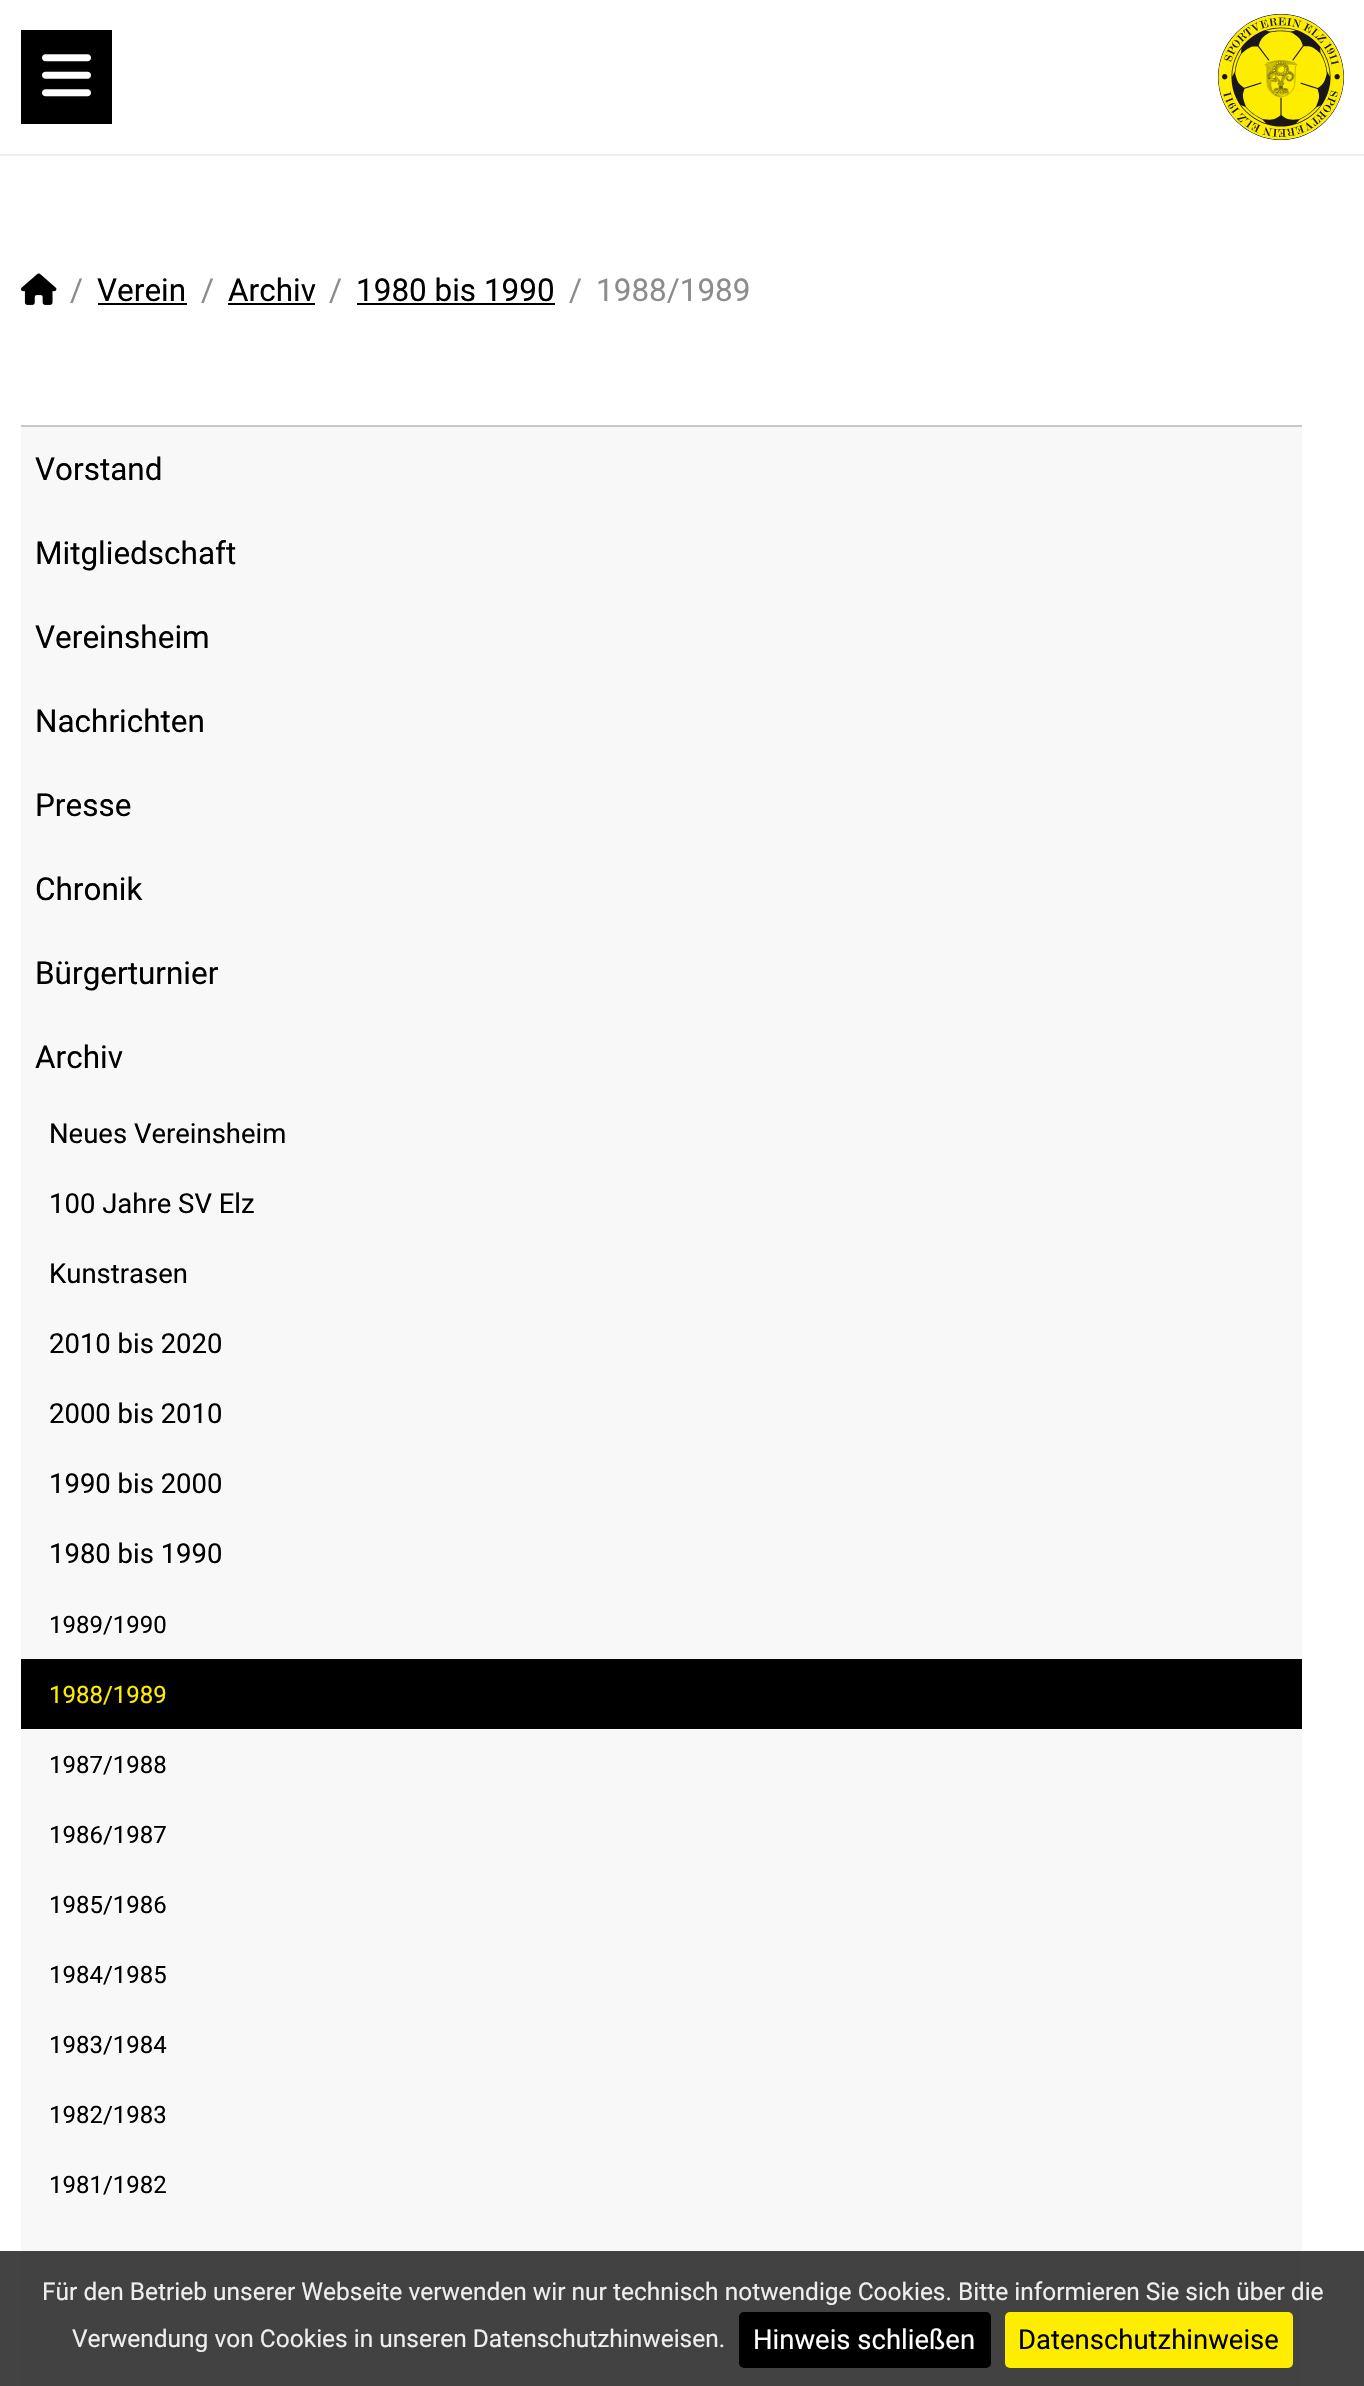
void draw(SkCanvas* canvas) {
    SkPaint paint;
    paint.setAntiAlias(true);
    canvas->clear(0xFFFFFFFF);
    paint.setColor(0xFFEEEEEE);
    canvas->drawRect(SkRect::MakeXYWH(0, 154, 1364, 2), paint);
    paint.setColor(0xFF000000);
    canvas->drawRect(SkRect::MakeXYWH(21, 30, 91, 94), paint);
    canvas->drawImageRect(SkImages::DeferredFromEncodedData(SkData::MakeFromFileName("img1.png")), SkRect::MakeXYWH(42, 54, 49, 43), SkSamplingOptions());
    canvas->drawImageRect(SkImages::DeferredFromEncodedData(SkData::MakeFromFileName("img2.png")), SkRect::MakeXYWH(1218, 14, 126, 126), SkSamplingOptions());
    canvas->drawImageRect(SkImages::DeferredFromEncodedData(SkData::MakeFromFileName("img3.png")), SkRect::MakeXYWH(21, 273, 36, 32), SkSamplingOptions());
    SkFont font1(fontMgr->matchFamilyStyle("Roboto", SkFontStyle::Normal()), 31.5f);
    font1.setSubpixel(true);
    paint.setColor(0xFF8C8C8C);
    canvas->drawString("/", 70, 301, font1, paint);
    paint.setColor(0xFF000000);
    canvas->drawString("Verein", 97, 301, font1, paint);
    canvas->drawRect(SkRect::MakeXYWH(98, 303, 89, 2), paint);
    paint.setColor(0xFF8C8C8C);
    canvas->drawString("/", 201, 301, font1, paint);
    paint.setColor(0xFF000000);
    canvas->drawString("Archiv", 228, 301, font1, paint);
    canvas->drawRect(SkRect::MakeXYWH(228, 303, 87, 2), paint);
    paint.setColor(0xFF8C8C8C);
    canvas->drawString("/", 329, 301, font1, paint);
    paint.setColor(0xFF000000);
    canvas->drawString("1980 bis 1990", 356, 301, font1, paint);
    canvas->drawRect(SkRect::MakeXYWH(357, 303, 198, 2), paint);
    paint.setColor(0xFF8C8C8C);
    canvas->drawString("/", 569, 301, font1, paint);
    canvas->drawString("1988/1989", 596, 301, font1, paint);
    paint.setColor(0xFFF8F8F8);
    canvas->drawRect(SkRect::MakeXYWH(21, 427, 1281, 1959), paint);
    paint.setColor(0xFFC8C8C8);
    canvas->drawRect(SkRect::MakeXYWH(21, 425, 1281, 2), paint);
    paint.setColor(0xFF000000);
    canvas->drawString("Vorstand", 35, 480, font1, paint);
    canvas->drawString("Mitgliedschaft", 35, 564, font1, paint);
    canvas->drawString("Vereinsheim", 35, 648, font1, paint);
    canvas->drawString("Nachrichten", 35, 732, font1, paint);
    canvas->drawString("Presse", 35, 816, font1, paint);
    canvas->drawString("Chronik", 35, 900, font1, paint);
    canvas->drawString("Bürgerturnier", 35, 984, font1, paint);
    canvas->drawString("Archiv", 35, 1068, font1, paint);
    SkFont font2(fontMgr->matchFamilyStyle("Roboto", SkFontStyle::Normal()), 27.5f);
    font2.setSubpixel(true);
    canvas->drawString("Neues Vereinsheim", 49, 1143, font2, paint);
    canvas->drawString("100 Jahre SV Elz", 49, 1213, font2, paint);
    canvas->drawString("Kunstrasen", 49, 1283, font2, paint);
    canvas->drawString("2010 bis 2020", 49, 1353, font2, paint);
    canvas->drawString("2000 bis 2010", 49, 1423, font2, paint);
    canvas->drawString("1990 bis 2000", 49, 1493, font2, paint);
    canvas->drawString("1980 bis 1990", 49, 1563, font2, paint);
    SkFont font3(fontMgr->matchFamilyStyle("Roboto", SkFontStyle::Normal()), 24);
    font3.setSubpixel(true);
    canvas->drawString("1989/1990", 49, 1633, font3, paint);
    canvas->drawRect(SkRect::MakeXYWH(21, 1659, 1281, 70), paint);
    paint.setColor(0xFFFFED00);
    canvas->drawString("1988/1989", 49, 1703, font3, paint);
    paint.setColor(0xFF000000);
    canvas->drawString("1987/1988", 49, 1773, font3, paint);
    canvas->drawString("1986/1987", 49, 1843, font3, paint);
    canvas->drawString("1985/1986", 49, 1913, font3, paint);
    canvas->drawString("1984/1985", 49, 1983, font3, paint);
    canvas->drawString("1983/1984", 49, 2053, font3, paint);
    canvas->drawString("1982/1983", 49, 2123, font3, paint);
    canvas->drawString("1981/1982", 49, 2193, font3, paint);
    paint.setColor(0xCC141414);
    canvas->drawRect(SkRect::MakeXYWH(0, 2251, 1364, 135), paint);
    SkFont font4(fontMgr->matchFamilyStyle("Roboto", SkFontStyle::Normal()), 24.5f);
    font4.setSubpixel(true);
    paint.setColor(0xFFEEEEEE);
    canvas->drawString("Für den Betrieb unserer Webseite verwenden wir nur technisch notwendige Cookies. Bitte informieren Sie sich über die", 42, 2300, font4, paint);
    canvas->drawString("Verwendung von Cookies in unseren Datenschutzhinweisen.", 72, 2347, font4, paint);
    paint.setColor(0xFF000000);
    canvas->drawRoundRect(SkRect::MakeXYWH(739, 2312, 252, 56), 5, 5, paint);
    paint.setColor(0xFFFFFFFF);
    canvas->drawString("Hinweis schließen", 753, 2349, font2, paint);
    paint.setColor(0xFFFFED00);
    canvas->drawRoundRect(SkRect::MakeXYWH(1005, 2312, 288, 56), 5, 5, paint);
    paint.setColor(0xFF000000);
    canvas->drawString("Datenschutzhinweise", 1018, 2349, font2, paint);
}
